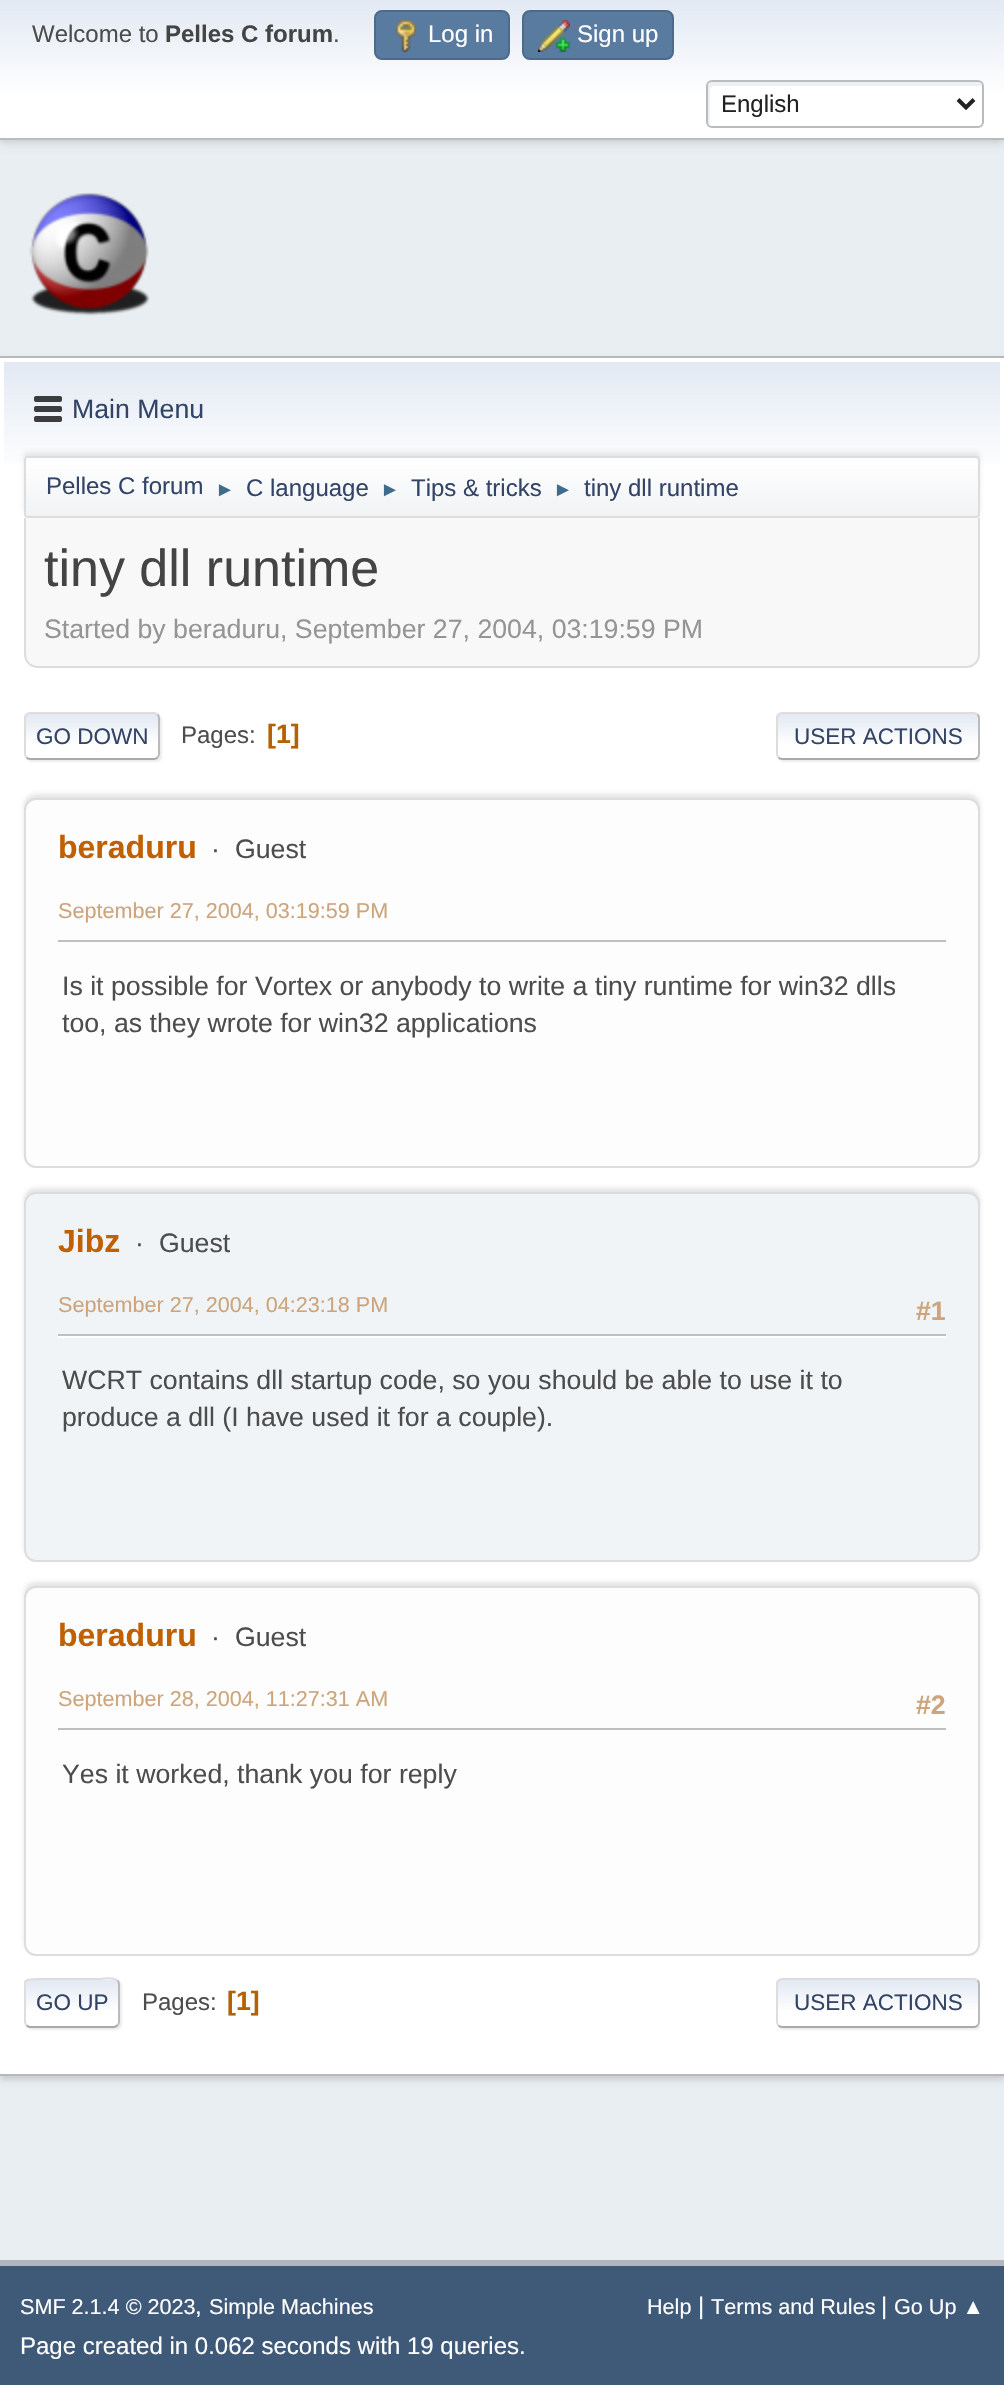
void draw(SkCanvas* canvas) {
    SkPaint paint;
    paint.setAntiAlias(true);
    canvas->clear(0xFFE9EEF2);
    paint.setColor(0x29000000);
    paint.setMaskFilter(SkMaskFilter::MakeBlur(kNormal_SkBlurStyle, 4));
    canvas->drawRect(SkRect::MakeXYWH(0, 2, 1004, 140), paint);
    paint.setMaskFilter(nullptr);
    {
        const SkColor colors[] = {0xFFE2E9F3, 0xFFFFFFFF};
        const float stops[] = {0, 0.7f};
        const SkPoint ends[] = {{502, 0}, {502, 138}};
        paint.setShader(SkGradientShader::MakeLinear(ends, colors, stops, 2, SkTileMode::kClamp));
        paint.setAlpha(255);
    }
    canvas->drawRect(SkRect::MakeXYWH(0, 0, 1004, 138), paint);
    paint.setShader(nullptr);
    paint.setColor(0xFFBBBBBB);
    canvas->drawRect(SkRect::MakeXYWH(0, 138, 1004, 2), paint);
    SkFont font1(fontMgr->matchFamilyStyle("Liberation Sans", SkFontStyle::Normal()), 24);
    font1.setSubpixel(true);
    paint.setColor(0xFF4D4D4D);
    canvas->drawString("Welcome to", 32, 42, font1, paint);
    SkFont font2(fontMgr->matchFamilyStyle("Liberation Sans", SkFontStyle::Bold()), 24);
    font2.setSubpixel(true);
    paint.setColor(0xFF444444);
    canvas->drawString("Pelles C forum", 165, 42, font2, paint);
    paint.setColor(0xFF4D4D4D);
    canvas->drawString(".", 333, 42, font1, paint);
    paint.setColor(0xFF597B9F);
    canvas->drawRoundRect(SkRect::MakeXYWH(375, 11, 134, 48), 7, 7, paint);
    paint.setStyle(SkPaint::kStroke_Style);
    paint.setStrokeWidth(2);
    paint.setColor(0xFF4A6B8C);
    canvas->drawRoundRect(SkRect::MakeXYWH(375, 11, 134, 48), 7, 7, paint);
    canvas->drawImageRect(SkImages::DeferredFromEncodedData(SkData::MakeFromFileName("img1.png")), SkRect::MakeXYWH(395, 20, 22, 32), SkSamplingOptions());
    paint.setStyle(SkPaint::kFill_Style);
    paint.setColor(0xFFFFFFFF);
    canvas->drawString("Log in", 428, 42, font1, paint);
    paint.setColor(0xFF597B9F);
    canvas->drawRoundRect(SkRect::MakeXYWH(523, 11, 150, 48), 7, 7, paint);
    paint.setStyle(SkPaint::kStroke_Style);
    paint.setColor(0xFF4A6B8C);
    canvas->drawRoundRect(SkRect::MakeXYWH(523, 11, 150, 48), 7, 7, paint);
    canvas->drawImageRect(SkImages::DeferredFromEncodedData(SkData::MakeFromFileName("img2.png")), SkRect::MakeXYWH(538, 20, 32, 32), SkSamplingOptions());
    paint.setStyle(SkPaint::kFill_Style);
    paint.setColor(0xFFFFFFFF);
    canvas->drawString("Sign up", 577, 42, font1, paint);
    canvas->drawRoundRect(SkRect::MakeXYWH(706, 80, 278, 48), 6, 6, paint);
    paint.setColor(0xFFECF1F8);
    canvas->drawPath(SkPathBuilder().moveTo(714, 86).lineTo(980, 86).lineTo(982, 87).lineTo(982, 86).cubicTo(982, 84, 980, 82, 978, 82).lineTo(712, 82).cubicTo(710, 82, 708, 84, 708, 86).lineTo(708, 122).cubicTo(708, 123, 709, 125, 710, 125).lineTo(710, 90).cubicTo(710, 88, 712, 86, 714, 86).close().detach(), paint);
    paint.setStyle(SkPaint::kStroke_Style);
    paint.setColor(0xFFBBBBBB);
    canvas->drawRoundRect(SkRect::MakeXYWH(707, 81, 276, 46), 5, 5, paint);
    paint.setStrokeWidth(4);
    paint.setColor(0xFF222222);
    canvas->drawPath(SkPathBuilder().moveTo(958, 99.5f).lineTo(966, 107.5f).lineTo(974, 99.5f).detach(), paint);
    paint.setStyle(SkPaint::kFill_Style);
    canvas->drawString("English", 721, 112, font1, paint);
    canvas->drawImageRect(SkImages::DeferredFromEncodedData(SkData::MakeFromFileName("img3.png")), SkRect::MakeXYWH(29, 192, 121, 124), SkSamplingOptions());
    paint.setColor(0x24000000);
    paint.setMaskFilter(SkMaskFilter::MakeBlur(kNormal_SkBlurStyle, 3));
    canvas->drawRect(SkRect::MakeXYWH(0, 360, 1004, 1720), paint);
    paint.setMaskFilter(nullptr);
    paint.setColor(0xFFFFFFFF);
    canvas->drawRect(SkRect::MakeXYWH(0, 358, 1004, 1716), paint);
    paint.setColor(0xFFB8B8B8);
    canvas->drawRect(SkRect::MakeXYWH(0, 356, 1004, 2), paint);
    canvas->drawRect(SkRect::MakeXYWH(0, 2074, 1004, 2), paint);
    {
        const SkColor colors[] = {0xFFE2E9F3, 0xFFFFFFFF};
        const float stops[] = {0, 0.7f};
        const SkPoint ends[] = {{502, 362}, {502, 522}};
        paint.setShader(SkGradientShader::MakeLinear(ends, colors, stops, 2, SkTileMode::kClamp));
        paint.setAlpha(255);
    }
    canvas->drawRect(SkRect::MakeXYWH(4, 362, 996, 102), paint);
    canvas->drawImageRect(SkImages::DeferredFromEncodedData(SkData::MakeFromFileName("img4.png")), SkRect::MakeXYWH(34, 396, 28, 26), SkSamplingOptions());
    SkFont font3(fontMgr->matchFamilyStyle("Liberation Sans", SkFontStyle::Normal()), 26.7f);
    font3.setSubpixel(true);
    paint.setShader(nullptr);
    paint.setColor(0xFF334466);
    canvas->drawString("Main Menu", 72, 418, font3, paint);
    paint.setColor(0x14000000);
    paint.setMaskFilter(SkMaskFilter::MakeBlur(kNormal_SkBlurStyle, 2));
    canvas->drawRoundRect(SkRect::MakeXYWH(24, 452, 956, 62), 4, 4, paint);
    paint.setMaskFilter(nullptr);
    canvas->save();
    canvas->clipPath(SkPathBuilder().moveTo(28, 456).lineTo(976, 456).cubicTo(978, 456, 980, 458, 980, 460).lineTo(980, 514).cubicTo(980, 516, 978, 518, 976, 518).lineTo(28, 518).cubicTo(26, 518, 24, 516, 24, 514).lineTo(24, 460).cubicTo(24, 458, 26, 456, 28, 456).close().detach(), true);
    {
        const SkColor colors[] = {0xFFFFFFFF, 0xFFF1F3F5};
        const float stops[] = {0, 0.95f};
        const SkPoint ends[] = {{502, 458}, {502, 516}};
        paint.setShader(SkGradientShader::MakeLinear(ends, colors, stops, 2, SkTileMode::kClamp));
        paint.setAlpha(255);
    }
    canvas->drawRect(SkRect::MakeXYWH(24, 458, 956, 58), paint);
    canvas->restore();
    paint.setStyle(SkPaint::kStroke_Style);
    paint.setStrokeWidth(2);
    paint.setShader(nullptr);
    paint.setColor(0xFFDDDDDD);
    canvas->drawRoundRect(SkRect::MakeXYWH(25, 457, 954, 60), 3, 3, paint);
    paint.setStyle(SkPaint::kFill_Style);
    paint.setColor(0xFF334466);
    canvas->drawString("Pelles C forum", 46, 494, font1, paint);
    SkFont font4(fontMgr->matchFamilyStyle("Liberation Sans", SkFontStyle::Normal()), 20);
    font4.setSubpixel(true);
    paint.setColor(0xFF3F6B8C);
    canvas->drawString("►", 215, 496, font4, paint);
    paint.setColor(0xFF334466);
    canvas->drawString("C language", 246, 496, font1, paint);
    paint.setColor(0xFF3F6B8C);
    canvas->drawString("►", 380, 496, font4, paint);
    paint.setColor(0xFF334466);
    canvas->drawString("Tips & tricks", 411, 496, font1, paint);
    paint.setColor(0xFF3F6B8C);
    canvas->drawString("►", 553, 496, font4, paint);
    paint.setColor(0xFF334466);
    canvas->drawString("tiny dll runtime", 584, 496, font1, paint);
    paint.setColor(0xFFF8F8F8);
    canvas->drawPath(SkPathBuilder().moveTo(24, 518).lineTo(980, 518).lineTo(980, 654).cubicTo(980, 661.5f, 973.5f, 668, 966, 668).lineTo(38, 668).cubicTo(30.5f, 668, 24, 661.5f, 24, 654).close().detach(), paint);
    paint.setColor(0xFFDDDDDD);
    canvas->drawPath(SkPathBuilder(SkPathFillType::kEvenOdd).moveTo(24, 518).lineTo(980, 518).lineTo(980, 654).cubicTo(980, 662, 974, 668, 966, 668).lineTo(38, 668).cubicTo(30, 668, 24, 662, 24, 654).close().moveTo(26, 518).lineTo(978, 518).lineTo(978, 654).cubicTo(978, 661, 973, 666, 966, 666).lineTo(38, 666).cubicTo(31, 666, 26, 661, 26, 654).close().detach(), paint);
    SkFont font5(fontMgr->matchFamilyStyle("Liberation Sans", SkFontStyle::Normal()), 52);
    font5.setSubpixel(true);
    paint.setColor(0xFF444444);
    canvas->drawString("tiny dll runtime", 44, 586, font5, paint);
    paint.setColor(0xFF959595);
    canvas->drawString("Started by beraduru, September 27, 2004, 03:19:59 PM", 44, 638, font3, paint);
    paint.setColor(0x91DDDDDD);
    paint.setMaskFilter(SkMaskFilter::MakeBlur(kNormal_SkBlurStyle, 1));
    canvas->drawRoundRect(SkRect::MakeXYWH(26, 714, 136, 48), 6, 6, paint);
    paint.setMaskFilter(nullptr);
    canvas->save();
    canvas->clipPath(SkPathBuilder().moveTo(30, 712).lineTo(154, 712).cubicTo(157.5f, 712, 160, 714.5f, 160, 718).lineTo(160, 754).cubicTo(160, 757.5f, 157.5f, 760, 154, 760).lineTo(30, 760).cubicTo(26.5f, 760, 24, 757.5f, 24, 754).lineTo(24, 718).cubicTo(24, 714.5f, 26.5f, 712, 30, 712).close().detach(), true);
    {
        const SkColor colors[] = {0xFFE2E9F3, 0xFFFFFFFF};
        const float stops[] = {0, 0.7f};
        const SkPoint ends[] = {{92, 714}, {92, 758}};
        paint.setShader(SkGradientShader::MakeLinear(ends, colors, stops, 2, SkTileMode::kClamp));
        paint.setAlpha(255);
    }
    canvas->drawRect(SkRect::MakeXYWH(24, 714, 136, 44), paint);
    canvas->restore();
    paint.setStyle(SkPaint::kStroke_Style);
    paint.setShader(nullptr);
    paint.setColor(0xFFBBBBBB);
    canvas->drawPath(SkPathBuilder().moveTo(157.5f, 714.5f).cubicTo(158.5f, 715.5f, 159, 716.5f, 159, 718).lineTo(159, 754).cubicTo(159, 755.5f, 158.5f, 756.5f, 157.5f, 757.5f).detach(), paint);
    paint.setColor(0xFFAAAAAA);
    canvas->drawPath(SkPathBuilder().moveTo(157.5f, 757.5f).cubicTo(156.5f, 758.5f, 155.5f, 759, 154, 759).lineTo(30, 759).cubicTo(28.5f, 759, 27.5f, 758.5f, 26.5f, 757.5f).detach(), paint);
    paint.setColor(0xFFDDDDDD);
    canvas->drawPath(SkPathBuilder().moveTo(26.5f, 757.5f).cubicTo(25.5f, 756.5f, 25, 755.5f, 25, 754).lineTo(25, 718).cubicTo(25, 716.5f, 25.5f, 715.5f, 26.5f, 714.5f).cubicTo(27.5f, 713.5f, 28.5f, 713, 30, 713).lineTo(154, 713).cubicTo(155.5f, 713, 156.5f, 713.5f, 157.5f, 714.5f).detach(), paint);
    SkFont font6(fontMgr->matchFamilyStyle("Liberation Sans", SkFontStyle::Normal()), 22.5f);
    font6.setSubpixel(true);
    paint.setStyle(SkPaint::kFill_Style);
    paint.setColor(0xFF334466);
    canvas->drawString("GO DOWN", 36, 744, font6, paint);
    paint.setColor(0xFF4D4D4D);
    canvas->drawString("Pages:", 181, 743, font1, paint);
    SkFont font7(fontMgr->matchFamilyStyle("Liberation Sans", SkFontStyle::Bold()), 26.7f);
    font7.setSubpixel(true);
    paint.setColor(0xFFB46100);
    canvas->drawString("[1]", 267, 743, font7, paint);
    canvas->save();
    canvas->clipRect(SkRect::MakeXYWH(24, 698, 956, 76));
    paint.setColor(0x91DDDDDD);
    paint.setMaskFilter(SkMaskFilter::MakeBlur(kNormal_SkBlurStyle, 1));
    canvas->drawRoundRect(SkRect::MakeXYWH(778, 714, 204, 48), 6, 6, paint);
    paint.setMaskFilter(nullptr);
    canvas->restore();
    canvas->save();
    canvas->clipPath(SkPathBuilder().moveTo(782, 712).lineTo(974, 712).cubicTo(977.5f, 712, 980, 714.5f, 980, 718).lineTo(980, 754).cubicTo(980, 757.5f, 977.5f, 760, 974, 760).lineTo(782, 760).cubicTo(778.5f, 760, 776, 757.5f, 776, 754).lineTo(776, 718).cubicTo(776, 714.5f, 778.5f, 712, 782, 712).close().detach(), true);
    {
        const SkColor colors[] = {0xFFE2E9F3, 0xFFFFFFFF};
        const float stops[] = {0, 0.7f};
        const SkPoint ends[] = {{878, 714}, {878, 758}};
        paint.setShader(SkGradientShader::MakeLinear(ends, colors, stops, 2, SkTileMode::kClamp));
        paint.setAlpha(255);
    }
    canvas->drawRect(SkRect::MakeXYWH(776, 714, 204, 44), paint);
    canvas->restore();
    paint.setStyle(SkPaint::kStroke_Style);
    paint.setShader(nullptr);
    paint.setColor(0xFFBBBBBB);
    canvas->drawPath(SkPathBuilder().moveTo(977.5f, 714.5f).cubicTo(978.5f, 715.5f, 979, 716.5f, 979, 718).lineTo(979, 754).cubicTo(979, 755.5f, 978.5f, 756.5f, 977.5f, 757.5f).detach(), paint);
    paint.setColor(0xFFAAAAAA);
    canvas->drawPath(SkPathBuilder().moveTo(977.5f, 757.5f).cubicTo(976.5f, 758.5f, 975.5f, 759, 974, 759).lineTo(782, 759).cubicTo(780.5f, 759, 779.5f, 758.5f, 778.5f, 757.5f).detach(), paint);
    paint.setColor(0xFFDDDDDD);
    canvas->drawPath(SkPathBuilder().moveTo(778.5f, 757.5f).cubicTo(777.5f, 756.5f, 777, 755.5f, 777, 754).lineTo(777, 718).cubicTo(777, 716.5f, 777.5f, 715.5f, 778.5f, 714.5f).cubicTo(779.5f, 713.5f, 780.5f, 713, 782, 713).lineTo(974, 713).cubicTo(975.5f, 713, 976.5f, 713.5f, 977.5f, 714.5f).detach(), paint);
    paint.setStyle(SkPaint::kFill_Style);
    paint.setColor(0xFF334466);
    canvas->drawString("USER ACTIONS", 794, 744, font6, paint);
    paint.setColor(0x1A000000);
    paint.setMaskFilter(SkMaskFilter::MakeBlur(kNormal_SkBlurStyle, 2));
    canvas->drawRoundRect(SkRect::MakeXYWH(24, 794, 956, 370), 12, 12, paint);
    paint.setMaskFilter(nullptr);
    paint.setColor(0xFFFDFDFD);
    canvas->drawRoundRect(SkRect::MakeXYWH(25, 799, 954, 368), 11, 11, paint);
    paint.setStyle(SkPaint::kStroke_Style);
    paint.setColor(0xFFDDDDDD);
    canvas->drawRoundRect(SkRect::MakeXYWH(25, 799, 954, 368), 11, 11, paint);
    SkFont font8(fontMgr->matchFamilyStyle("Liberation Sans", SkFontStyle::Bold()), 32);
    font8.setSubpixel(true);
    paint.setStyle(SkPaint::kFill_Style);
    paint.setColor(0xFFC06002);
    canvas->drawString("beraduru", 58, 858, font8, paint);
    paint.setColor(0xFF4D4D4D);
    canvas->drawString("·", 211, 858, font3, paint);
    canvas->drawString("Guest", 235, 858, font3, paint);
    SkFont font9(fontMgr->matchFamilyStyle("Liberation Sans", SkFontStyle::Normal()), 21.6f);
    font9.setSubpixel(true);
    paint.setColor(0xFFCDA47B);
    canvas->drawString("September 27, 2004, 03:19:59 PM", 58, 918, font9, paint);
    paint.setColor(0xFFBFBFBF);
    canvas->drawRect(SkRect::MakeXYWH(58, 940, 888, 2), paint);
    paint.setColor(0xFF4D4D4D);
    canvas->drawString("Is it possible for Vortex or anybody to write a tiny runtime for win32 dlls", 62, 995, font3, paint);
    canvas->drawString("too, as they wrote for win32 applications", 62, 1032, font3, paint);
    paint.setColor(0x1A000000);
    paint.setMaskFilter(SkMaskFilter::MakeBlur(kNormal_SkBlurStyle, 2));
    canvas->drawRoundRect(SkRect::MakeXYWH(24, 1188, 956, 370), 12, 12, paint);
    paint.setMaskFilter(nullptr);
    paint.setColor(0xFFF0F4F7);
    canvas->drawRoundRect(SkRect::MakeXYWH(25, 1193, 954, 368), 11, 11, paint);
    paint.setStyle(SkPaint::kStroke_Style);
    paint.setColor(0xFFDDDDDD);
    canvas->drawRoundRect(SkRect::MakeXYWH(25, 1193, 954, 368), 11, 11, paint);
    paint.setStyle(SkPaint::kFill_Style);
    paint.setColor(0xFFC06002);
    canvas->drawString("Jibz", 58, 1252, font8, paint);
    paint.setColor(0xFF4D4D4D);
    canvas->drawString("·", 135, 1252, font3, paint);
    canvas->drawString("Guest", 159, 1252, font3, paint);
    paint.setColor(0xFFCDA47B);
    canvas->drawString("September 27, 2004, 04:23:18 PM", 58, 1312, font9, paint);
    canvas->drawString("#1", 916, 1320, font7, paint);
    paint.setColor(0xFFFFFFFF);
    canvas->drawRect(SkRect::MakeXYWH(58, 1336, 888, 2), paint);
    paint.setColor(0xFFBFBFBF);
    canvas->drawRect(SkRect::MakeXYWH(58, 1334, 888, 2), paint);
    paint.setColor(0xFF4D4D4D);
    canvas->drawString("WCRT contains dll startup code, so you should be able to use it to", 62, 1389, font3, paint);
    canvas->drawString("produce a dll (I have used it for a couple).", 62, 1426, font3, paint);
    paint.setColor(0x1A000000);
    paint.setMaskFilter(SkMaskFilter::MakeBlur(kNormal_SkBlurStyle, 2));
    canvas->drawRoundRect(SkRect::MakeXYWH(24, 1582, 956, 370), 12, 12, paint);
    paint.setMaskFilter(nullptr);
    paint.setColor(0xFFFDFDFD);
    canvas->drawRoundRect(SkRect::MakeXYWH(25, 1587, 954, 368), 11, 11, paint);
    paint.setStyle(SkPaint::kStroke_Style);
    paint.setColor(0xFFDDDDDD);
    canvas->drawRoundRect(SkRect::MakeXYWH(25, 1587, 954, 368), 11, 11, paint);
    paint.setStyle(SkPaint::kFill_Style);
    paint.setColor(0xFFC06002);
    canvas->drawString("beraduru", 58, 1646, font8, paint);
    paint.setColor(0xFF4D4D4D);
    canvas->drawString("·", 211, 1646, font3, paint);
    canvas->drawString("Guest", 235, 1646, font3, paint);
    paint.setColor(0xFFCDA47B);
    canvas->drawString("September 28, 2004, 11:27:31 AM", 58, 1706, font9, paint);
    canvas->drawString("#2", 916, 1714, font7, paint);
    paint.setColor(0xFFBFBFBF);
    canvas->drawRect(SkRect::MakeXYWH(58, 1728, 888, 2), paint);
    paint.setColor(0xFF4D4D4D);
    canvas->drawString("Yes it worked, thank you for reply", 62, 1783, font3, paint);
    paint.setColor(0x91DDDDDD);
    paint.setMaskFilter(SkMaskFilter::MakeBlur(kNormal_SkBlurStyle, 1));
    canvas->drawRoundRect(SkRect::MakeXYWH(26, 1980, 96, 50), 6, 6, paint);
    paint.setMaskFilter(nullptr);
    paint.setColor(0xFFFFFFFF);
    canvas->drawRoundRect(SkRect::MakeXYWH(24, 1978, 96, 50), 6, 6, paint);
    canvas->save();
    canvas->clipPath(SkPathBuilder().moveTo(30, 1978).lineTo(114, 1978).cubicTo(117.5f, 1978, 120, 1980.5f, 120, 1984).lineTo(120, 2022).cubicTo(120, 2025.5f, 117.5f, 2028, 114, 2028).lineTo(30, 2028).cubicTo(26.5f, 2028, 24, 2025.5f, 24, 2022).lineTo(24, 1984).cubicTo(24, 1980.5f, 26.5f, 1978, 30, 1978).close().detach(), true);
    {
        const SkColor colors[] = {0xFFE2E9F3, 0xFFFFFFFF};
        const float stops[] = {0, 0.7f};
        const SkPoint ends[] = {{72, 1980}, {72, 2026}};
        paint.setShader(SkGradientShader::MakeLinear(ends, colors, stops, 2, SkTileMode::kClamp));
        paint.setAlpha(255);
    }
    canvas->drawRect(SkRect::MakeXYWH(24, 1980, 96, 46), paint);
    {
        const SkColor colors[] = {0xFFE2E9F3, 0xFFFFFFFF};
        const float stops[] = {0, 0.7f};
        const SkPoint ends[] = {{72, 2026}, {72, 2072}};
        paint.setShader(SkGradientShader::MakeLinear(ends, colors, stops, 2, SkTileMode::kClamp));
        paint.setAlpha(255);
    }
    canvas->drawRect(SkRect::MakeXYWH(24, 2026, 96, 2), paint);
    canvas->restore();
    paint.setStyle(SkPaint::kStroke_Style);
    paint.setShader(nullptr);
    paint.setColor(0xFFBBBBBB);
    canvas->drawPath(SkPathBuilder().moveTo(117.5f, 1980.5f).cubicTo(118.5f, 1981.5f, 119, 1982.5f, 119, 1984).lineTo(119, 2022).cubicTo(119, 2023.5f, 118.5f, 2024.5f, 117.5f, 2025.5f).detach(), paint);
    paint.setColor(0xFFAAAAAA);
    canvas->drawPath(SkPathBuilder().moveTo(117.5f, 2025.5f).lineTo(114.5f, 2027).lineTo(29.5f, 2027).lineTo(26.5f, 2025.5f).detach(), paint);
    canvas->save();
    canvas->clipRect(SkRect::MakeXYWH(24, 1964, 956, 78));
    paint.setColor(0xFFDDDDDD);
    canvas->drawPath(SkPathBuilder().moveTo(26.5f, 2025.5f).cubicTo(24, 2023, 25, 2018.5f, 25, 2015.5f).lineTo(25, 2003).cubicTo(25, 1977.5f, 20, 1979, 44, 1979).lineTo(100, 1979).cubicTo(100, 1979, 114, 1977, 117.5f, 1980.5f).detach(), paint);
    canvas->restore();
    paint.setStyle(SkPaint::kFill_Style);
    paint.setColor(0xFF334466);
    canvas->drawString("GO UP", 36, 2010, font6, paint);
    paint.setColor(0xFF4D4D4D);
    canvas->drawString("Pages:", 142, 2010, font1, paint);
    paint.setColor(0xFFB46100);
    canvas->drawString("[1]", 227, 2010, font7, paint);
    canvas->save();
    canvas->clipRect(SkRect::MakeXYWH(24, 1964, 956, 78));
    paint.setColor(0x91DDDDDD);
    paint.setMaskFilter(SkMaskFilter::MakeBlur(kNormal_SkBlurStyle, 1));
    canvas->drawRoundRect(SkRect::MakeXYWH(778, 1980, 204, 50), 6, 6, paint);
    paint.setMaskFilter(nullptr);
    canvas->restore();
    canvas->save();
    canvas->clipPath(SkPathBuilder().moveTo(782, 1978).lineTo(974, 1978).cubicTo(977.5f, 1978, 980, 1980.5f, 980, 1984).lineTo(980, 2022).cubicTo(980, 2025.5f, 977.5f, 2028, 974, 2028).lineTo(782, 2028).cubicTo(778.5f, 2028, 776, 2025.5f, 776, 2022).lineTo(776, 1984).cubicTo(776, 1980.5f, 778.5f, 1978, 782, 1978).close().detach(), true);
    {
        const SkColor colors[] = {0xFFE2E9F3, 0xFFFFFFFF};
        const float stops[] = {0, 0.7f};
        const SkPoint ends[] = {{878, 1980}, {878, 2026}};
        paint.setShader(SkGradientShader::MakeLinear(ends, colors, stops, 2, SkTileMode::kClamp));
        paint.setAlpha(255);
    }
    canvas->drawRect(SkRect::MakeXYWH(776, 1980, 204, 46), paint);
    canvas->restore();
    paint.setStyle(SkPaint::kStroke_Style);
    paint.setShader(nullptr);
    paint.setColor(0xFFBBBBBB);
    canvas->drawPath(SkPathBuilder().moveTo(977.5f, 1980.5f).cubicTo(978.5f, 1981.5f, 979, 1982.5f, 979, 1984).lineTo(979, 2022).cubicTo(979, 2023.5f, 978.5f, 2024.5f, 977.5f, 2025.5f).detach(), paint);
    paint.setColor(0xFFAAAAAA);
    canvas->drawPath(SkPathBuilder().moveTo(977.5f, 2025.5f).cubicTo(976.5f, 2026.5f, 975.5f, 2027, 974, 2027).lineTo(782, 2027).cubicTo(780.5f, 2027, 779.5f, 2026.5f, 778.5f, 2025.5f).detach(), paint);
    paint.setColor(0xFFDDDDDD);
    canvas->drawPath(SkPathBuilder().moveTo(778.5f, 2025.5f).cubicTo(777.5f, 2024.5f, 777, 2023.5f, 777, 2022).lineTo(777, 1984).cubicTo(777, 1982.5f, 777.5f, 1981.5f, 778.5f, 1980.5f).cubicTo(779.5f, 1979.5f, 780.5f, 1979, 782, 1979).lineTo(974, 1979).cubicTo(975.5f, 1979, 976.5f, 1979.5f, 977.5f, 1980.5f).detach(), paint);
    paint.setStyle(SkPaint::kFill_Style);
    paint.setColor(0xFF334466);
    canvas->drawString("USER ACTIONS", 794, 2010, font6, paint);
    paint.setColor(0xFF3E5A78);
    canvas->drawRect(SkRect::MakeXYWH(0, 2266, 1004, 119), paint);
    paint.setColor(0xFFB2B6BD);
    canvas->drawRect(SkRect::MakeXYWH(0, 2260, 1004, 6), paint);
    paint.setColor(0xFFFFFFFF);
    canvas->drawString("SMF 2.1.4 © 2023", 20, 2314, font9, paint);
    canvas->drawString(",", 195, 2314, font1, paint);
    canvas->drawString("Simple Machines", 209, 2314, font9, paint);
    canvas->drawString("Help", 647, 2314, font9, paint);
    canvas->drawString("|", 698, 2314, font1, paint);
    canvas->drawString("Terms and Rules", 711, 2314, font9, paint);
    canvas->drawString("|", 881, 2314, font1, paint);
    canvas->drawString("Go Up ▲", 894, 2314, font9, paint);
    canvas->drawString("Page created in 0.062 seconds with 19 queries.", 20, 2354, font1, paint);
}
